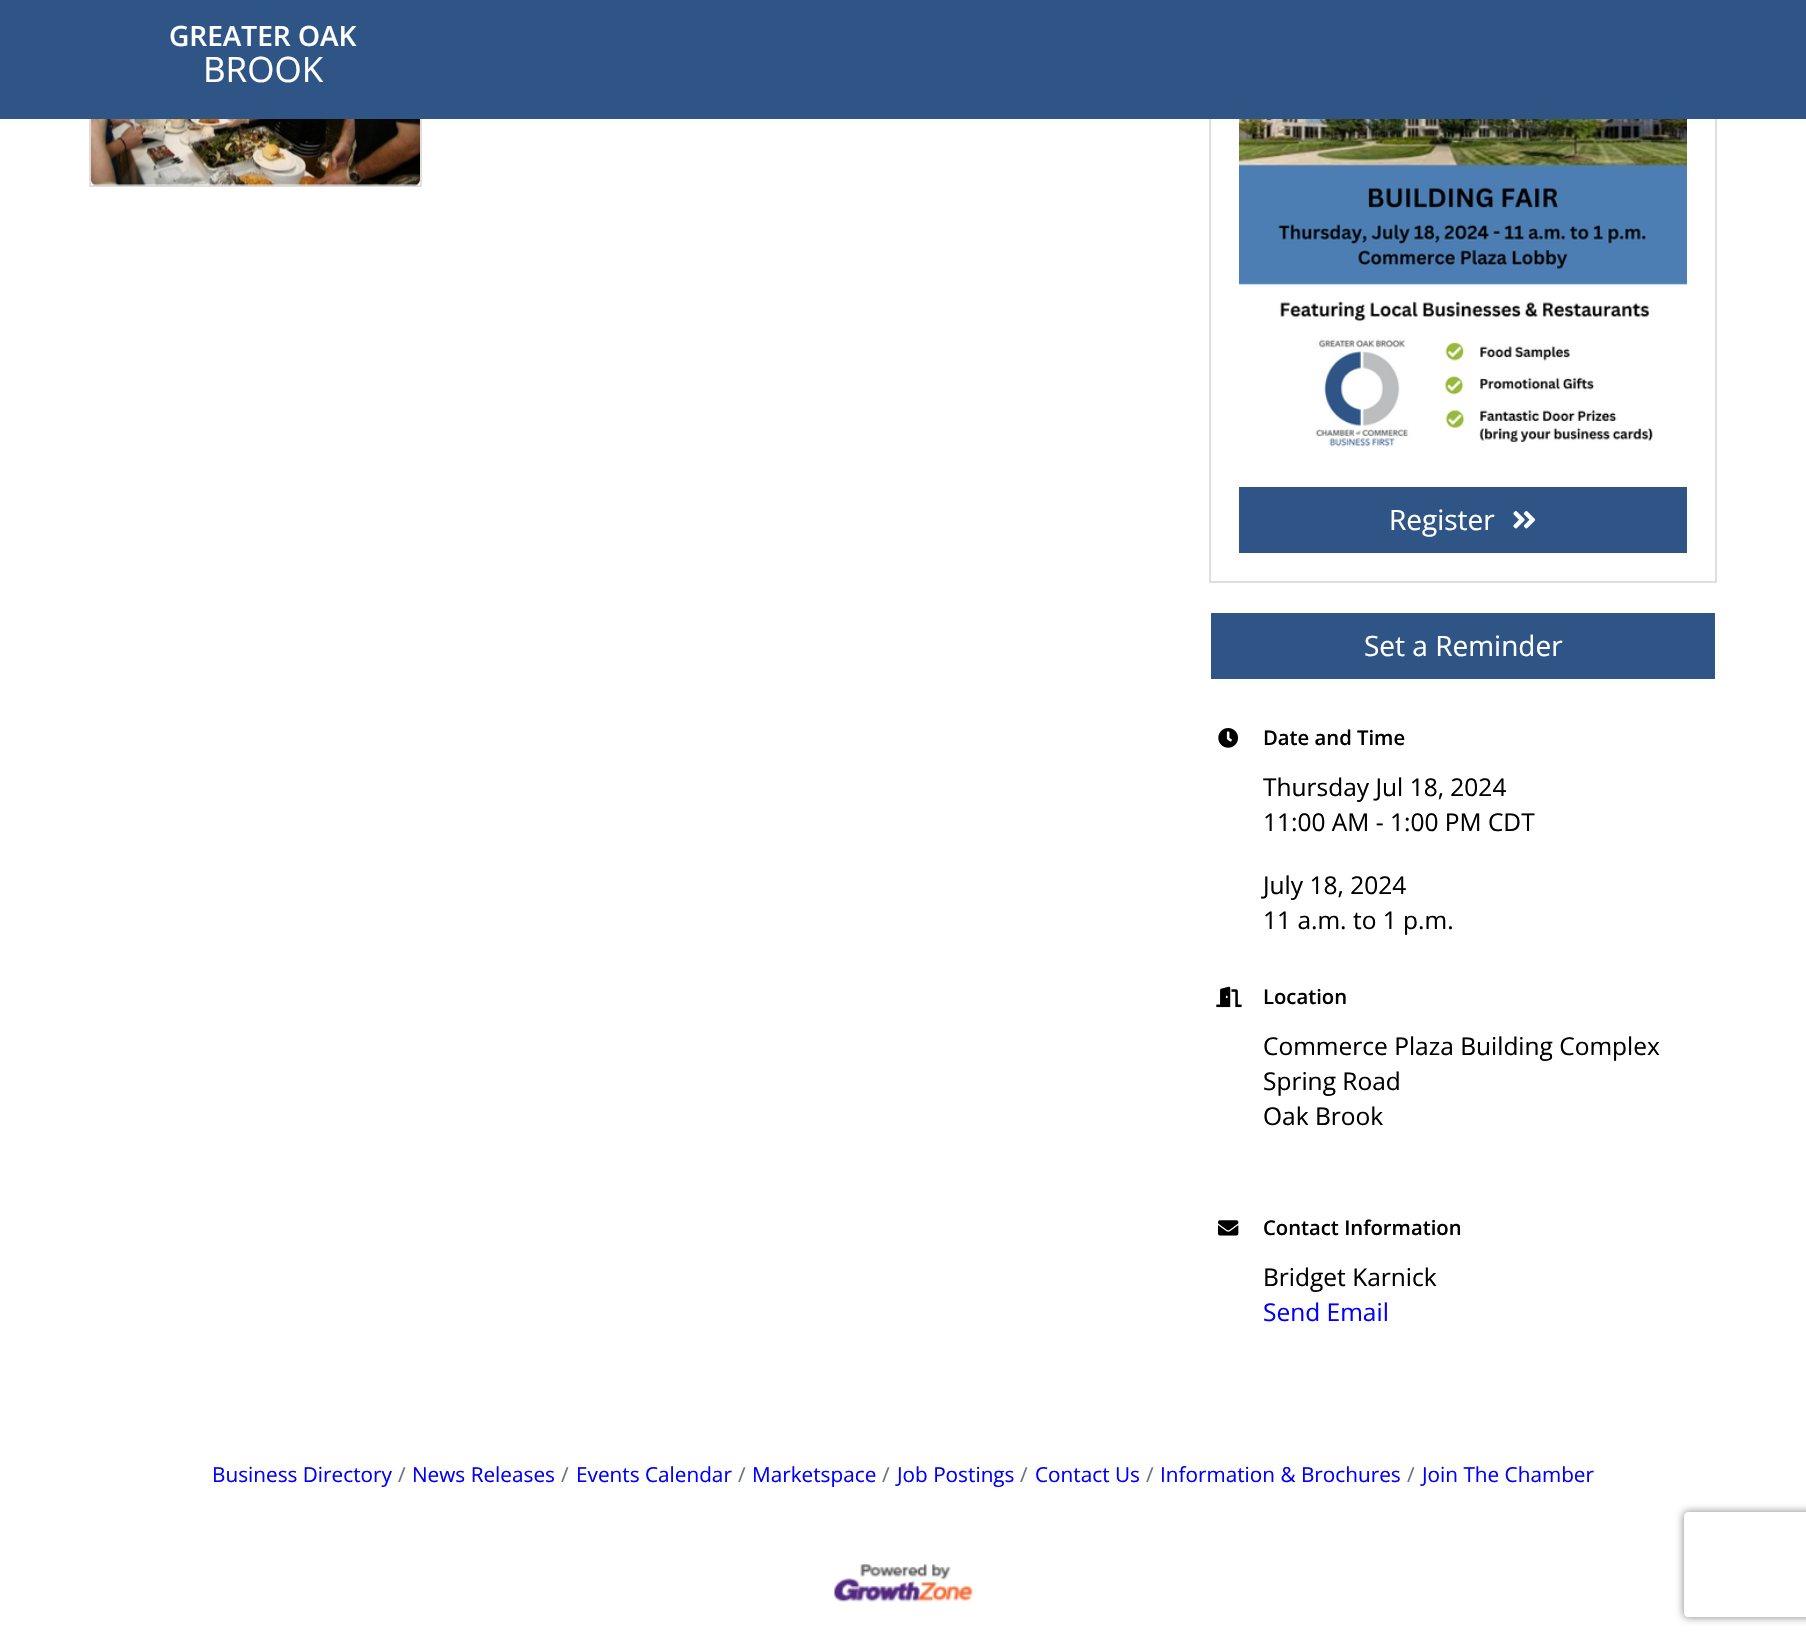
void draw(SkCanvas* canvas) {
    SkPaint paint;
    paint.setAntiAlias(true);
    canvas->clear(0xFFFFFFFF);
    paint.setStyle(SkPaint::kStroke_Style);
    paint.setStrokeWidth(2);
    paint.setColor(0xFFDFDFDF);
    canvas->drawRect(SkRect::MakeXYWH(90, -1, 331, 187), paint);
    canvas->drawRect(SkRect::MakeXYWH(1210, -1, 506, 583), paint);
    paint.setStyle(SkPaint::kFill_Style);
    paint.setColor(0xFF2E5586);
    canvas->drawRect(SkRect::MakeXYWH(0, 0, 1806, 119), paint);
    SkFont font1(fontMgr->matchFamilyStyle("Open Sans", SkFontStyle(600, SkFontStyle::kNormal_Width, SkFontStyle::kUpright_Slant)), 28);
    font1.setSubpixel(true);
    paint.setColor(0xFFFFFFFF);
    canvas->drawString("GREATER OAK", 169, 46, font1, paint);
    SkFont font2(fontMgr->matchFamilyStyle("Open Sans", SkFontStyle::Normal()), 35);
    font2.setSubpixel(true);
    canvas->drawString("BROOK", 203, 82, font2, paint);
    canvas->drawImageRect(SkImages::DeferredFromEncodedData(SkData::MakeFromFileName("img1.png")), SkRect::MakeXYWH(91, 119, 329, 67), SkSamplingOptions());
    canvas->drawImageRect(SkImages::DeferredFromEncodedData(SkData::MakeFromFileName("img2.png")), SkRect::MakeXYWH(1239, 119, 448, 329), SkSamplingOptions());
    paint.setColor(0xFF2E5586);
    canvas->drawRect(SkRect::MakeXYWH(1239, 487, 448, 66), paint);
    SkFont font3(fontMgr->matchFamilyStyle("Open Sans", SkFontStyle::Normal()), 28);
    font3.setSubpixel(true);
    paint.setColor(0xFFFFFFFF);
    canvas->drawString("Register", 1389, 530, font3, paint);
    canvas->drawImageRect(SkImages::DeferredFromEncodedData(SkData::MakeFromFileName("img3.png")), SkRect::MakeXYWH(1513, 511, 23, 18), SkSamplingOptions());
    paint.setColor(0xFF2E5586);
    canvas->drawRect(SkRect::MakeXYWH(1211, 613, 504, 66), paint);
    paint.setColor(0xFFFFFFFF);
    canvas->drawString("Set a Reminder", 1364, 656, font3, paint);
    canvas->drawImageRect(SkImages::DeferredFromEncodedData(SkData::MakeFromFileName("img4.png")), SkRect::MakeXYWH(1218, 728, 20, 20), SkSamplingOptions());
    SkFont font4(fontMgr->matchFamilyStyle("Open Sans", SkFontStyle(600, SkFontStyle::kNormal_Width, SkFontStyle::kUpright_Slant)), 20.25f);
    font4.setSubpixel(true);
    paint.setColor(0xFF000000);
    canvas->drawString("Date and Time", 1263, 745, font4, paint);
    SkFont font5(fontMgr->matchFamilyStyle("Open Sans", SkFontStyle::Normal()), 24.5f);
    font5.setSubpixel(true);
    canvas->drawString("Thursday Jul 18, 2024", 1263, 796, font5, paint);
    canvas->drawString("11:00 AM - 1:00 PM CDT", 1263, 831, font5, paint);
    canvas->drawString("July 18, 2024", 1263, 894, font5, paint);
    canvas->drawString("11 a.m. to 1 p.m.", 1263, 929, font5, paint);
    canvas->drawImageRect(SkImages::DeferredFromEncodedData(SkData::MakeFromFileName("img5.png")), SkRect::MakeXYWH(1216, 986, 26, 22), SkSamplingOptions());
    canvas->drawString("Location", 1263, 1004, font4, paint);
    canvas->drawString("Commerce Plaza Building Complex", 1263, 1055, font5, paint);
    canvas->drawString("Spring Road", 1263, 1090, font5, paint);
    canvas->drawString("Oak Brook", 1263, 1125, font5, paint);
    canvas->drawImageRect(SkImages::DeferredFromEncodedData(SkData::MakeFromFileName("img6.png")), SkRect::MakeXYWH(1218, 1220, 21, 16), SkSamplingOptions());
    canvas->drawString("Contact Information", 1263, 1235, font4, paint);
    canvas->drawString("Bridget Karnick", 1263, 1286, font5, paint);
    paint.setColor(0xFF0000FF);
    canvas->drawString("Send Email", 1263, 1321, font5, paint);
    SkFont font6(fontMgr->matchFamilyStyle("Open Sans", SkFontStyle::Normal()), 20.75f);
    font6.setSubpixel(true);
    canvas->drawString("Business Directory", 212, 1482, font6, paint);
    paint.setColor(0xFF6C757D);
    canvas->drawString("/", 398, 1482, font6, paint);
    paint.setColor(0xFF0000FF);
    canvas->drawString("News Releases", 412, 1482, font6, paint);
    paint.setColor(0xFF6C757D);
    canvas->drawString("/", 561, 1482, font6, paint);
    paint.setColor(0xFF0000FF);
    canvas->drawString("Events Calendar", 576, 1482, font6, paint);
    paint.setColor(0xFF6C757D);
    canvas->drawString("/", 738, 1482, font6, paint);
    paint.setColor(0xFF0000FF);
    canvas->drawString("Marketspace", 752, 1482, font6, paint);
    paint.setColor(0xFF6C757D);
    canvas->drawString("/", 882, 1482, font6, paint);
    paint.setColor(0xFF0000FF);
    canvas->drawString("Job Postings", 897, 1482, font6, paint);
    paint.setColor(0xFF6C757D);
    canvas->drawString("/", 1020, 1482, font6, paint);
    paint.setColor(0xFF0000FF);
    canvas->drawString("Contact Us", 1035, 1482, font6, paint);
    paint.setColor(0xFF6C757D);
    canvas->drawString("/", 1146, 1482, font6, paint);
    paint.setColor(0xFF0000FF);
    canvas->drawString("Information & Brochures", 1160, 1482, font6, paint);
    paint.setColor(0xFF6C757D);
    canvas->drawString("/", 1407, 1482, font6, paint);
    paint.setColor(0xFF0000FF);
    canvas->drawString("Join The Chamber", 1422, 1482, font6, paint);
    canvas->drawImageRect(SkImages::DeferredFromEncodedData(SkData::MakeFromFileName("img7.png")), SkRect::MakeXYWH(834, 1564, 139, 38), SkSamplingOptions());
    canvas->save();
    canvas->clipPath(SkPathBuilder(SkPathFillType::kEvenOdd).moveTo(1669, 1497).lineTo(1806, 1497).lineTo(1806, 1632).lineTo(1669, 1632).close().moveTo(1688, 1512).lineTo(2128, 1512).cubicTo(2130, 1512, 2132, 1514, 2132, 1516).lineTo(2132, 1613).cubicTo(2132, 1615, 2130, 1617, 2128, 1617).lineTo(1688, 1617).cubicTo(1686, 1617, 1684, 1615, 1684, 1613).lineTo(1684, 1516).cubicTo(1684, 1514, 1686, 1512, 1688, 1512).close().detach(), true);
    paint.setColor(0xFF808080);
    paint.setMaskFilter(SkMaskFilter::MakeBlur(kNormal_SkBlurStyle, 4.5f));
    canvas->drawRoundRect(SkRect::MakeXYWH(1684, 1512, 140, 105), 4, 4, paint);
    paint.setMaskFilter(nullptr);
    canvas->restore();
}
